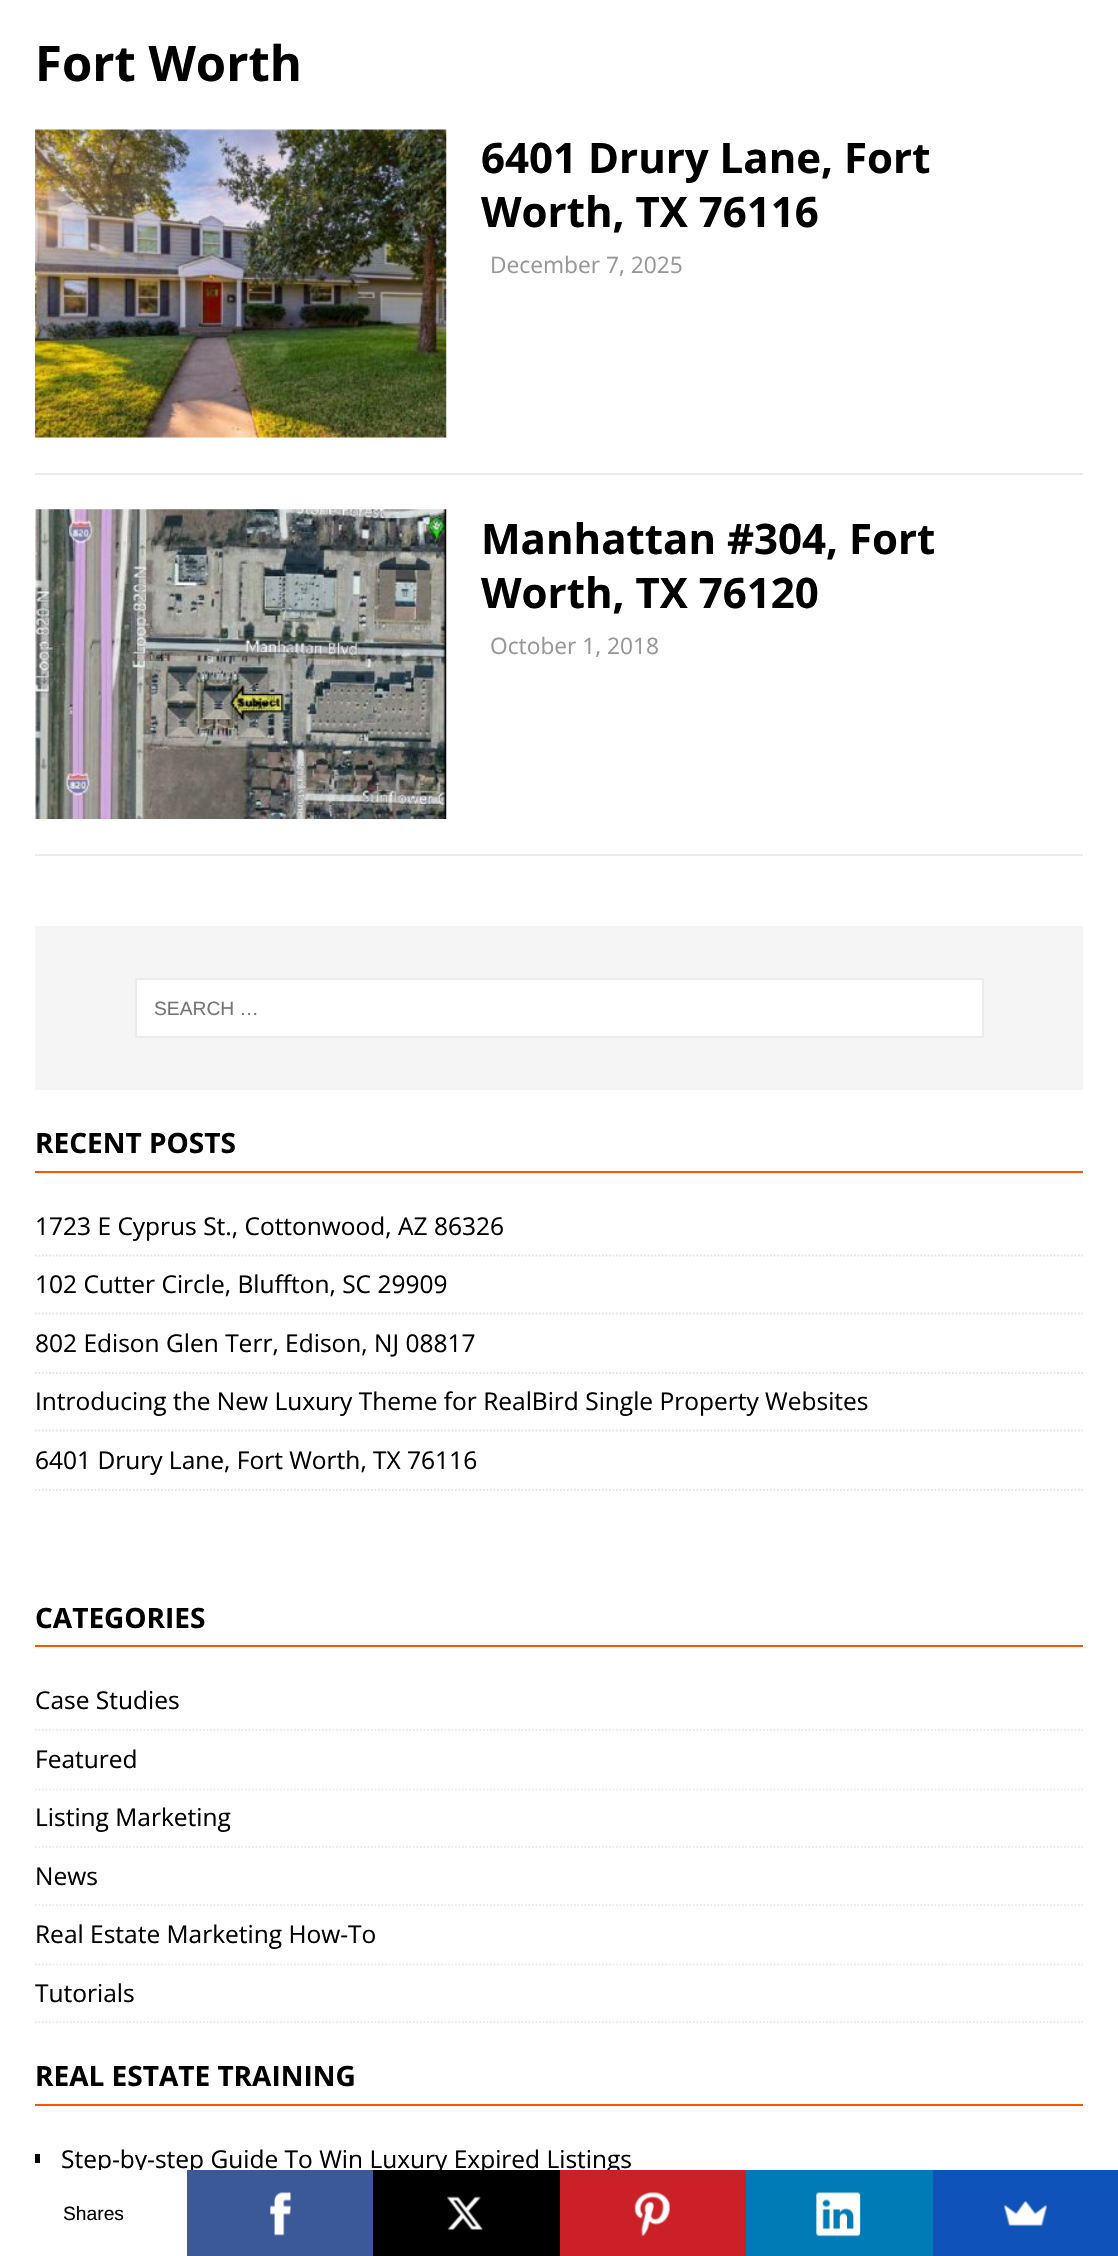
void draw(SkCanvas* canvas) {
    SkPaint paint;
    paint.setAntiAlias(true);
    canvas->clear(0xFFFFFFFF);
    SkFont font1(fontMgr->matchFamilyStyle("Open Sans", SkFontStyle::Bold()), 49);
    font1.setSubpixel(true);
    paint.setColor(0xFF000000);
    canvas->drawString("Fort Worth", 35, 81, font1, paint);
    paint.setColor(0xFFEBEBEB);
    canvas->drawRect(SkRect::MakeXYWH(35, 473, 1048, 2), paint);
    canvas->drawImageRect(SkImages::DeferredFromEncodedData(SkData::MakeFromFileName("img1.png")), SkRect::MakeXYWH(35, 129, 412, 309), SkSamplingOptions());
    SkFont font2(fontMgr->matchFamilyStyle("Open Sans", SkFontStyle::Bold()), 42);
    font2.setSubpixel(true);
    paint.setColor(0xFF000000);
    canvas->drawString("6401 Drury Lane, Fort", 481, 173, font2, paint);
    canvas->drawString("Worth, TX 76116", 481, 227, font2, paint);
    SkFont font3(fontMgr->matchFamilyStyle("Open Sans", SkFontStyle::Normal()), 22.75f);
    font3.setSubpixel(true);
    paint.setColor(0xFF979797);
    canvas->drawString("December 7, 2025", 490, 273, font3, paint);
    paint.setColor(0xFFEBEBEB);
    canvas->drawRect(SkRect::MakeXYWH(35, 854, 1048, 2), paint);
    canvas->drawImageRect(SkImages::DeferredFromEncodedData(SkData::MakeFromFileName("img2.png")), SkRect::MakeXYWH(35, 509, 412, 310), SkSamplingOptions());
    paint.setColor(0xFF000000);
    canvas->drawString("Manhattan #304, Fort", 481, 554, font2, paint);
    canvas->drawString("Worth, TX 76120", 481, 608, font2, paint);
    paint.setColor(0xFF979797);
    canvas->drawString("October 1, 2018", 490, 654, font3, paint);
    paint.setColor(0xFFF5F5F5);
    canvas->drawRect(SkRect::MakeXYWH(35, 926, 1048, 164), paint);
    paint.setColor(0xFFFFFFFF);
    canvas->drawRect(SkRect::MakeXYWH(136, 979, 847, 58), paint);
    paint.setStyle(SkPaint::kStroke_Style);
    paint.setStrokeWidth(2);
    paint.setColor(0xFFEBEBEB);
    canvas->drawRect(SkRect::MakeXYWH(136, 979, 847, 58), paint);
    SkFont font4(fontMgr->matchFamilyStyle("Liberation Sans", SkFontStyle::Normal()), 19.25f);
    font4.setSubpixel(true);
    paint.setStyle(SkPaint::kFill_Style);
    paint.setColor(0xFF757575);
    canvas->drawString("SEARCH …", 154, 1015, font4, paint);
    paint.setColor(0xFFFF5500);
    canvas->drawRect(SkRect::MakeXYWH(35, 1171, 1048, 2), paint);
    SkFont font5(fontMgr->matchFamilyStyle("Open Sans", SkFontStyle::Bold()), 28);
    font5.setSubpixel(true);
    paint.setColor(0xFF000000);
    canvas->drawString("RECENT POSTS", 35, 1153, font5, paint);
    paint.setStyle(SkPaint::kStroke_Style);
    paint.setStrokeWidth(1.8f);
    paint.setColor(0xFFE5E5E5);
    paint.setPathEffect(SkDashPathEffect::Make({{1.75f, 1.75f}}, 0));
    canvas->drawPath(SkPathBuilder().moveTo(35, 1255.5f).lineTo(1083, 1255.5f).detach(), paint);
    paint.setPathEffect(nullptr);
    SkFont font6(fontMgr->matchFamilyStyle("Open Sans", SkFontStyle::Normal()), 24.5f);
    font6.setSubpixel(true);
    paint.setStyle(SkPaint::kFill_Style);
    paint.setColor(0xFF000000);
    canvas->drawString("1723 E Cyprus St., Cottonwood, AZ 86326", 35, 1235, font6, paint);
    paint.setStyle(SkPaint::kStroke_Style);
    paint.setColor(0xFFE5E5E5);
    paint.setPathEffect(SkDashPathEffect::Make({{1.75f, 1.75f}}, 0));
    canvas->drawPath(SkPathBuilder().moveTo(35, 1313.5f).lineTo(1083, 1313.5f).detach(), paint);
    paint.setPathEffect(nullptr);
    paint.setStyle(SkPaint::kFill_Style);
    paint.setColor(0xFF000000);
    canvas->drawString("102 Cutter Circle, Bluffton, SC 29909", 35, 1293, font6, paint);
    paint.setStyle(SkPaint::kStroke_Style);
    paint.setColor(0xFFE5E5E5);
    paint.setPathEffect(SkDashPathEffect::Make({{1.75f, 1.75f}}, 0));
    canvas->drawPath(SkPathBuilder().moveTo(35, 1373).lineTo(1083, 1373).detach(), paint);
    paint.setPathEffect(nullptr);
    paint.setStyle(SkPaint::kFill_Style);
    paint.setColor(0xFF000000);
    canvas->drawString("802 Edison Glen Terr, Edison, NJ 08817", 35, 1352, font6, paint);
    paint.setStyle(SkPaint::kStroke_Style);
    paint.setColor(0xFFE5E5E5);
    paint.setPathEffect(SkDashPathEffect::Make({{1.75f, 1.75f}}, 0));
    canvas->drawPath(SkPathBuilder().moveTo(35, 1430.5f).lineTo(1083, 1430.5f).detach(), paint);
    paint.setPathEffect(nullptr);
    paint.setStyle(SkPaint::kFill_Style);
    paint.setColor(0xFF000000);
    canvas->drawString("Introducing the New Luxury Theme for RealBird Single Property Websites", 35, 1410, font6, paint);
    paint.setStyle(SkPaint::kStroke_Style);
    paint.setColor(0xFFE5E5E5);
    paint.setPathEffect(SkDashPathEffect::Make({{1.75f, 1.75f}}, 0));
    canvas->drawPath(SkPathBuilder().moveTo(35, 1490).lineTo(1083, 1490).detach(), paint);
    paint.setPathEffect(nullptr);
    paint.setStyle(SkPaint::kFill_Style);
    paint.setColor(0xFF000000);
    canvas->drawString("6401 Drury Lane, Fort Worth, TX 76116", 35, 1469, font6, paint);
    paint.setColor(0xFFFF5500);
    canvas->drawRect(SkRect::MakeXYWH(35, 1645, 1048, 2), paint);
    paint.setColor(0xFF000000);
    canvas->drawString("CATEGORIES", 35, 1628, font5, paint);
    paint.setStyle(SkPaint::kStroke_Style);
    paint.setColor(0xFFEBEBEB);
    paint.setPathEffect(SkDashPathEffect::Make({{1.75f, 1.75f}}, 0));
    canvas->drawPath(SkPathBuilder().moveTo(35, 1730).lineTo(1083, 1730).detach(), paint);
    paint.setPathEffect(nullptr);
    paint.setStyle(SkPaint::kFill_Style);
    paint.setColor(0xFF000000);
    canvas->drawString("Case Studies", 35, 1709, font6, paint);
    paint.setStyle(SkPaint::kStroke_Style);
    paint.setColor(0xFFEBEBEB);
    paint.setPathEffect(SkDashPathEffect::Make({{1.75f, 1.75f}}, 0));
    canvas->drawPath(SkPathBuilder().moveTo(35, 1789.5f).lineTo(1083, 1789.5f).detach(), paint);
    paint.setPathEffect(nullptr);
    paint.setStyle(SkPaint::kFill_Style);
    paint.setColor(0xFF000000);
    canvas->drawString("Featured", 35, 1768, font6, paint);
    paint.setStyle(SkPaint::kStroke_Style);
    paint.setColor(0xFFEBEBEB);
    paint.setPathEffect(SkDashPathEffect::Make({{1.75f, 1.75f}}, 0));
    canvas->drawPath(SkPathBuilder().moveTo(35, 1847).lineTo(1083, 1847).detach(), paint);
    paint.setPathEffect(nullptr);
    paint.setStyle(SkPaint::kFill_Style);
    paint.setColor(0xFF000000);
    canvas->drawString("Listing Marketing", 35, 1826, font6, paint);
    paint.setStyle(SkPaint::kStroke_Style);
    paint.setColor(0xFFEBEBEB);
    paint.setPathEffect(SkDashPathEffect::Make({{1.75f, 1.75f}}, 0));
    canvas->drawPath(SkPathBuilder().moveTo(35, 1905).lineTo(1083, 1905).detach(), paint);
    paint.setPathEffect(nullptr);
    paint.setStyle(SkPaint::kFill_Style);
    paint.setColor(0xFF000000);
    canvas->drawString("News", 35, 1885, font6, paint);
    paint.setStyle(SkPaint::kStroke_Style);
    paint.setColor(0xFFEBEBEB);
    paint.setPathEffect(SkDashPathEffect::Make({{1.75f, 1.75f}}, 0));
    canvas->drawPath(SkPathBuilder().moveTo(35, 1964.5f).lineTo(1083, 1964.5f).detach(), paint);
    paint.setPathEffect(nullptr);
    paint.setStyle(SkPaint::kFill_Style);
    paint.setColor(0xFF000000);
    canvas->drawString("Real Estate Marketing How-To", 35, 1943, font6, paint);
    paint.setStyle(SkPaint::kStroke_Style);
    paint.setColor(0xFFEBEBEB);
    paint.setPathEffect(SkDashPathEffect::Make({{1.75f, 1.75f}}, 0));
    canvas->drawPath(SkPathBuilder().moveTo(35, 2022).lineTo(1083, 2022).detach(), paint);
    paint.setPathEffect(nullptr);
    paint.setStyle(SkPaint::kFill_Style);
    paint.setColor(0xFF000000);
    canvas->drawString("Tutorials", 35, 2002, font6, paint);
    paint.setColor(0xFFFF5500);
    canvas->drawRect(SkRect::MakeXYWH(35, 2104, 1048, 2), paint);
    paint.setColor(0xFF000000);
    canvas->drawString("REAL ESTATE TRAINING", 35, 2086, font5, paint);
    canvas->drawRect(SkRect::MakeXYWH(35, 2154, 5, 9), paint);
    canvas->drawString("Step-by-step Guide To Win Luxury Expired Listings", 61, 2168, font6, paint);
    paint.setColor(0xFFFFFFFF);
    canvas->drawRect(SkRect::MakeXYWH(99, 2170, 43, 4), paint);
    paint.setColor(0xFF000000);
    canvas->drawString("Shares", 63, 2220, font4, paint);
    paint.setColor(0xFF3B5998);
    canvas->drawRect(SkRect::MakeXYWH(187, 2170, 186, 86), paint);
    canvas->drawImageRect(SkImages::DeferredFromEncodedData(SkData::MakeFromFileName("img3.png")), SkRect::MakeXYWH(270, 2192, 21, 44), SkSamplingOptions());
    paint.setColor(0xFF000000);
    canvas->drawRect(SkRect::MakeXYWH(373, 2170, 187, 86), paint);
    canvas->drawImageRect(SkImages::DeferredFromEncodedData(SkData::MakeFromFileName("img4.png")), SkRect::MakeXYWH(447, 2196, 36, 34), SkSamplingOptions());
    paint.setColor(0xFFCB2027);
    canvas->drawRect(SkRect::MakeXYWH(560, 2170, 186, 86), paint);
    canvas->drawImageRect(SkImages::DeferredFromEncodedData(SkData::MakeFromFileName("img5.png")), SkRect::MakeXYWH(634, 2192, 36, 45), SkSamplingOptions());
    paint.setColor(0xFF007BB6);
    canvas->drawRect(SkRect::MakeXYWH(746, 2170, 187, 86), paint);
    canvas->drawImageRect(SkImages::DeferredFromEncodedData(SkData::MakeFromFileName("img6.png")), SkRect::MakeXYWH(816, 2192, 45, 45), SkSamplingOptions());
    paint.setColor(0xFF0F52BA);
    canvas->drawRect(SkRect::MakeXYWH(933, 2170, 185, 86), paint);
    canvas->drawImageRect(SkImages::DeferredFromEncodedData(SkData::MakeFromFileName("img7.png")), SkRect::MakeXYWH(1004, 2201, 43, 25), SkSamplingOptions());
}
